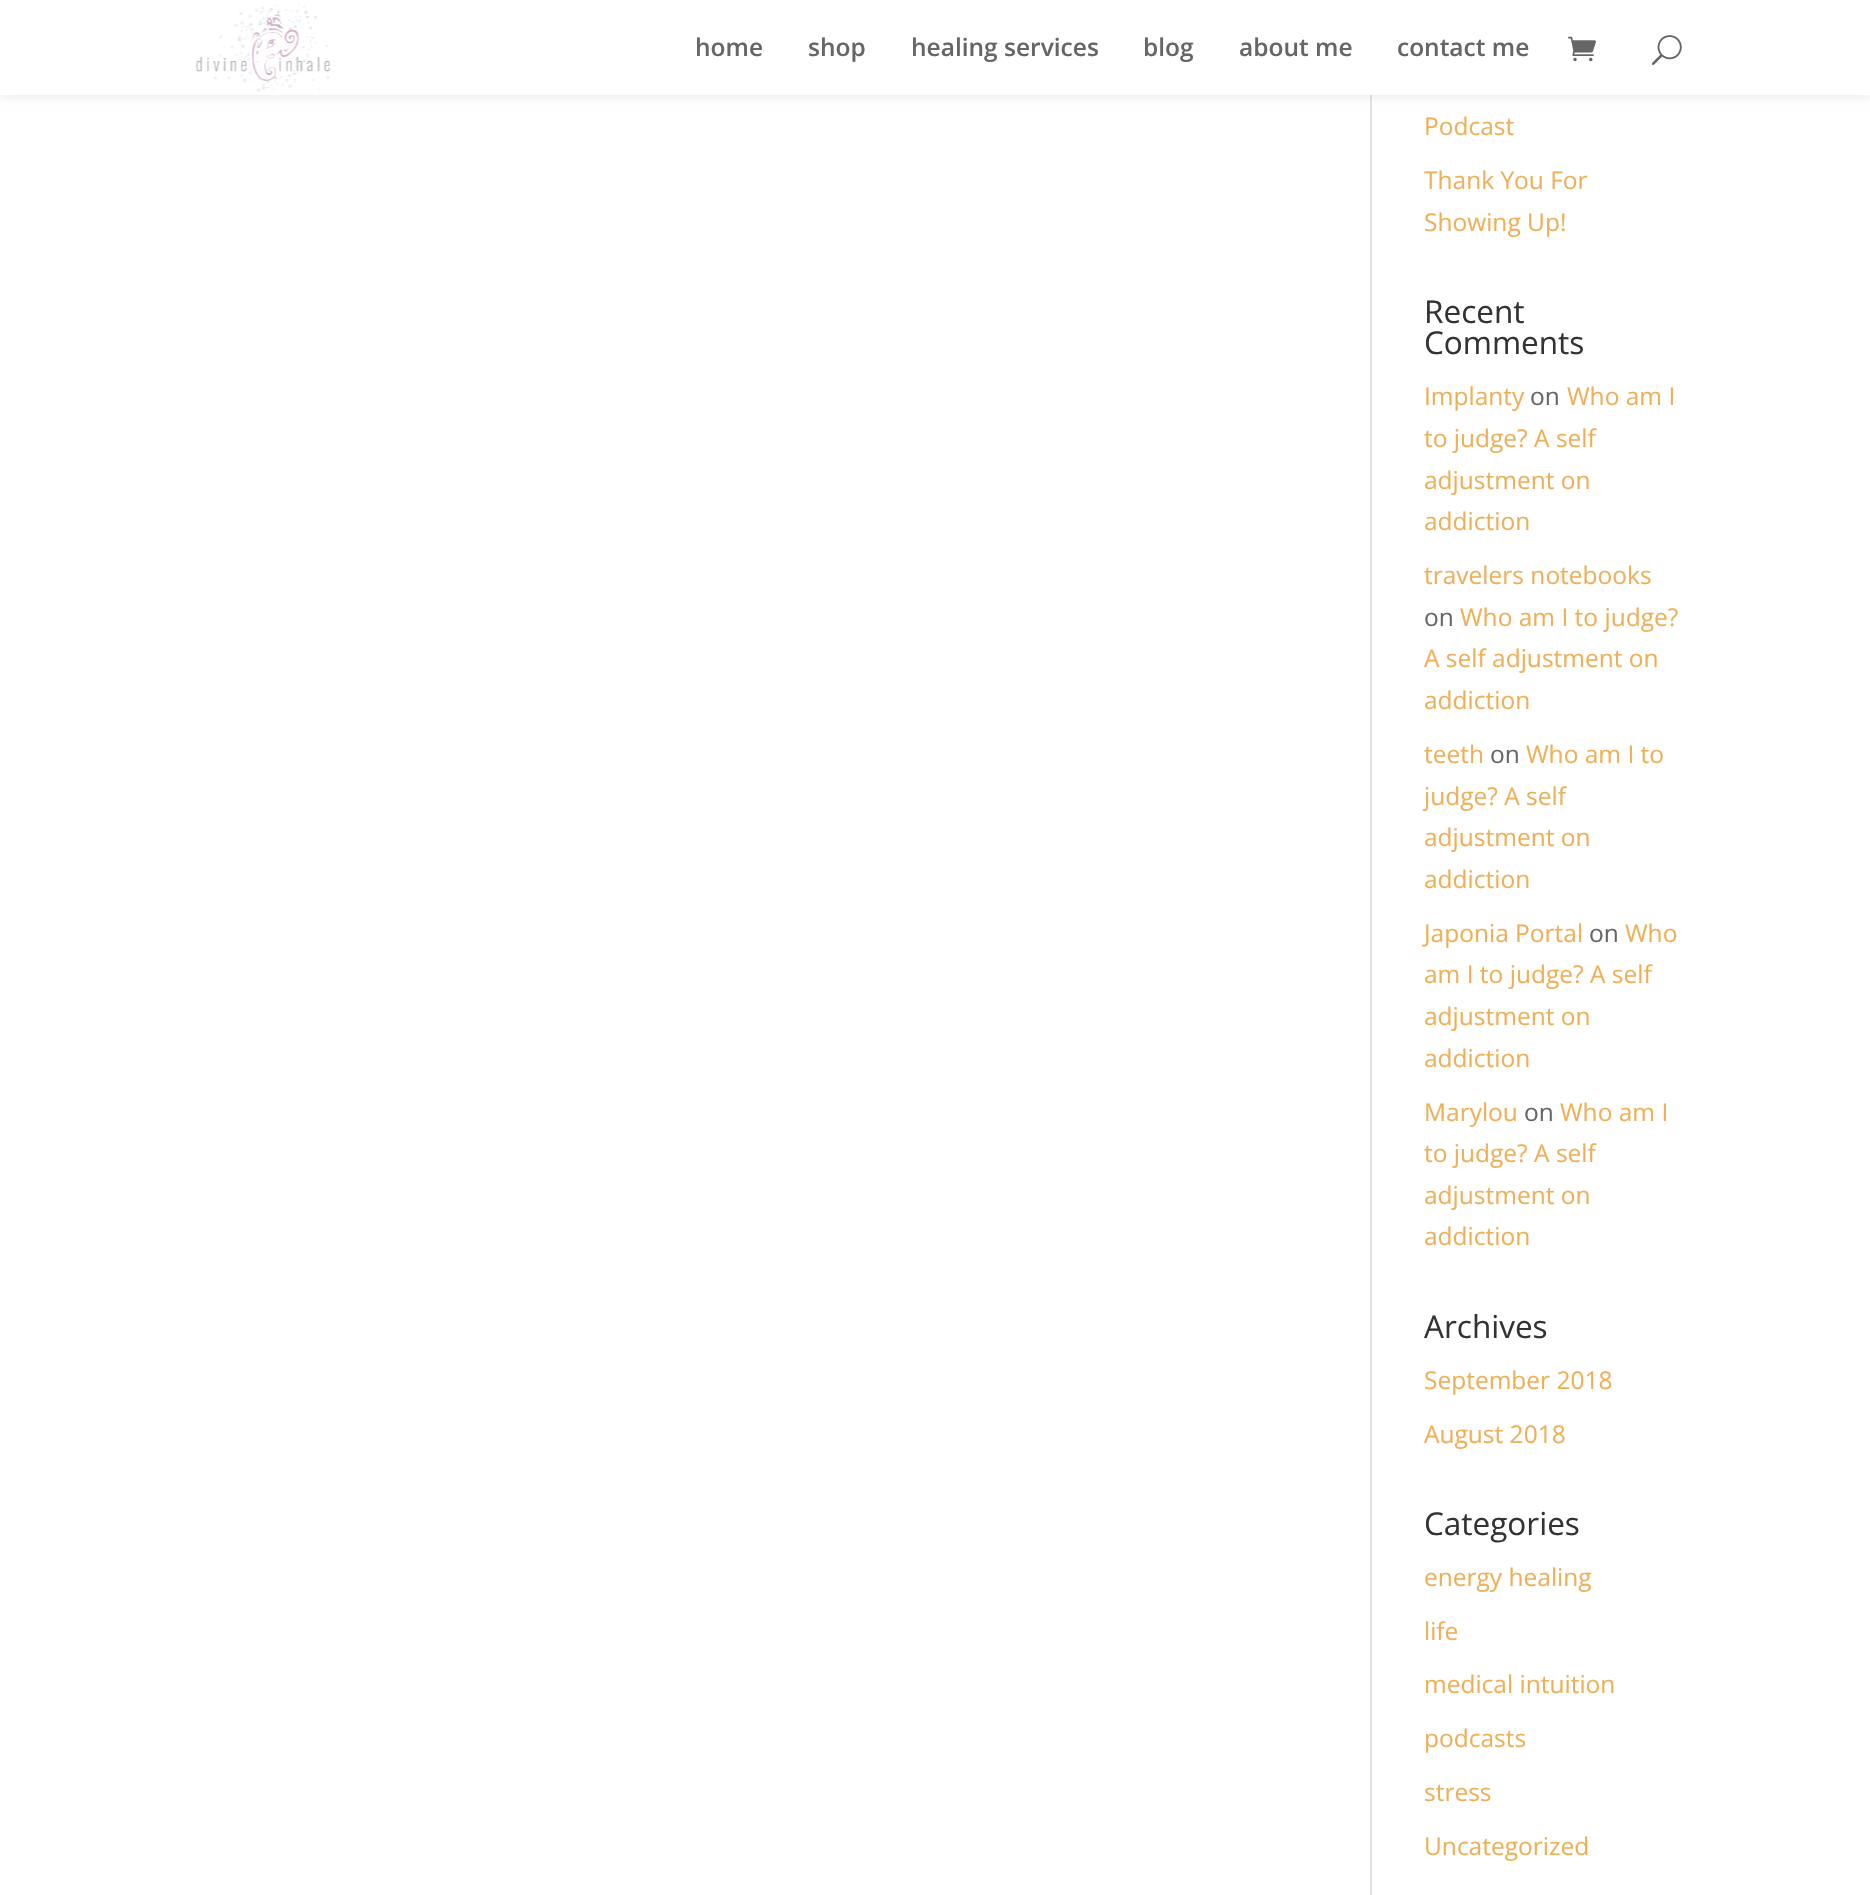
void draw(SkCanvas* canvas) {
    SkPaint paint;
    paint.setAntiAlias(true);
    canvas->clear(0xFFFFFFFF);
    paint.setColor(0xFFE2E2E2);
    canvas->drawRect(SkRect::MakeXYWH(1370, 95, 2, 1800), paint);
    paint.setColor(0x1A000000);
    paint.setMaskFilter(SkMaskFilter::MakeBlur(kNormal_SkBlurStyle, 6));
    canvas->drawRect(SkRect::MakeXYWH(0, 0, 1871, 95), paint);
    paint.setMaskFilter(nullptr);
    paint.setColor(0xFFFFFFFF);
    canvas->drawRect(SkRect::MakeXYWH(0, 0, 1870, 95), paint);
    canvas->drawImageRect(SkImages::DeferredFromEncodedData(SkData::MakeFromFileName("img1.png")), SkRect::MakeXYWH(196, 3, 135, 89), SkSamplingOptions());
    SkFont font1(fontMgr->matchFamilyStyle("Open Sans", SkFontStyle(600, SkFontStyle::kNormal_Width, SkFontStyle::kUpright_Slant)), 24.5f);
    font1.setSubpixel(true);
    paint.setColor(0xFF666666);
    canvas->drawString("home", 695, 56, font1, paint);
    canvas->drawString("shop", 808, 56, font1, paint);
    canvas->drawString("healing services", 911, 56, font1, paint);
    canvas->drawString("blog", 1143, 56, font1, paint);
    canvas->drawString("about me", 1239, 56, font1, paint);
    canvas->drawString("contact me", 1397, 56, font1, paint);
    canvas->drawImageRect(SkImages::DeferredFromEncodedData(SkData::MakeFromFileName("img2.png")), SkRect::MakeXYWH(1568, 36, 28, 26), SkSamplingOptions());
    canvas->drawImageRect(SkImages::DeferredFromEncodedData(SkData::MakeFromFileName("img3.png")), SkRect::MakeXYWH(1651, 35, 31, 30), SkSamplingOptions());
    SkFont font2(fontMgr->matchFamilyStyle("Open Sans", SkFontStyle::Normal()), 24.5f);
    font2.setSubpixel(true);
    paint.setColor(0xFFEDB059);
    canvas->drawString("Podcast", 1424, 135, font2, paint);
    canvas->drawString("Thank You For", 1424, 189, font2, paint);
    canvas->drawString("Showing Up!", 1424, 231, font2, paint);
    SkFont font3(fontMgr->matchFamilyStyle("Open Sans", SkFontStyle::Normal()), 31.5f);
    font3.setSubpixel(true);
    paint.setColor(0xFF333333);
    canvas->drawString("Recent", 1424, 323, font3, paint);
    canvas->drawString("Comments", 1424, 354, font3, paint);
    paint.setColor(0xFFEDB059);
    canvas->drawString("Implanty", 1424, 405, font2, paint);
    paint.setColor(0xFF666666);
    canvas->drawString("on", 1530, 405, font2, paint);
    paint.setColor(0xFFEDB059);
    canvas->drawString("Who am I", 1567, 405, font2, paint);
    canvas->drawString("to judge? A self", 1424, 447, font2, paint);
    canvas->drawString("adjustment on", 1424, 489, font2, paint);
    canvas->drawString("addiction", 1424, 530, font2, paint);
    canvas->drawString("travelers notebooks", 1424, 584, font2, paint);
    paint.setColor(0xFF666666);
    canvas->drawString("on", 1424, 626, font2, paint);
    paint.setColor(0xFFEDB059);
    canvas->drawString("Who am I to judge?", 1460, 626, font2, paint);
    canvas->drawString("A self adjustment on", 1424, 667, font2, paint);
    canvas->drawString("addiction", 1424, 709, font2, paint);
    canvas->drawString("teeth", 1424, 763, font2, paint);
    paint.setColor(0xFF666666);
    canvas->drawString("on", 1490, 763, font2, paint);
    paint.setColor(0xFFEDB059);
    canvas->drawString("Who am I to", 1526, 763, font2, paint);
    canvas->drawString("judge? A self", 1424, 805, font2, paint);
    canvas->drawString("adjustment on", 1424, 846, font2, paint);
    canvas->drawString("addiction", 1424, 888, font2, paint);
    canvas->drawString("Japonia Portal", 1424, 942, font2, paint);
    paint.setColor(0xFF666666);
    canvas->drawString("on", 1589, 942, font2, paint);
    paint.setColor(0xFFEDB059);
    canvas->drawString("Who", 1625, 942, font2, paint);
    canvas->drawString("am I to judge? A self", 1424, 983, font2, paint);
    canvas->drawString("adjustment on", 1424, 1025, font2, paint);
    canvas->drawString("addiction", 1424, 1067, font2, paint);
    canvas->drawString("Marylou", 1424, 1121, font2, paint);
    paint.setColor(0xFF666666);
    canvas->drawString("on", 1524, 1121, font2, paint);
    paint.setColor(0xFFEDB059);
    canvas->drawString("Who am I", 1560, 1121, font2, paint);
    canvas->drawString("to judge? A self", 1424, 1162, font2, paint);
    canvas->drawString("adjustment on", 1424, 1204, font2, paint);
    canvas->drawString("addiction", 1424, 1245, font2, paint);
    paint.setColor(0xFF333333);
    canvas->drawString("Archives", 1424, 1338, font3, paint);
    paint.setColor(0xFFEDB059);
    canvas->drawString("September 2018", 1424, 1389, font2, paint);
    canvas->drawString("August 2018", 1424, 1443, font2, paint);
    paint.setColor(0xFF333333);
    canvas->drawString("Categories", 1424, 1535, font3, paint);
    paint.setColor(0xFFEDB059);
    canvas->drawString("energy healing", 1424, 1586, font2, paint);
    canvas->drawString("life", 1424, 1640, font2, paint);
    canvas->drawString("medical intuition", 1424, 1693, font2, paint);
    canvas->drawString("podcasts", 1424, 1747, font2, paint);
    canvas->drawString("stress", 1424, 1801, font2, paint);
    canvas->drawString("Uncategorized", 1424, 1855, font2, paint);
}
